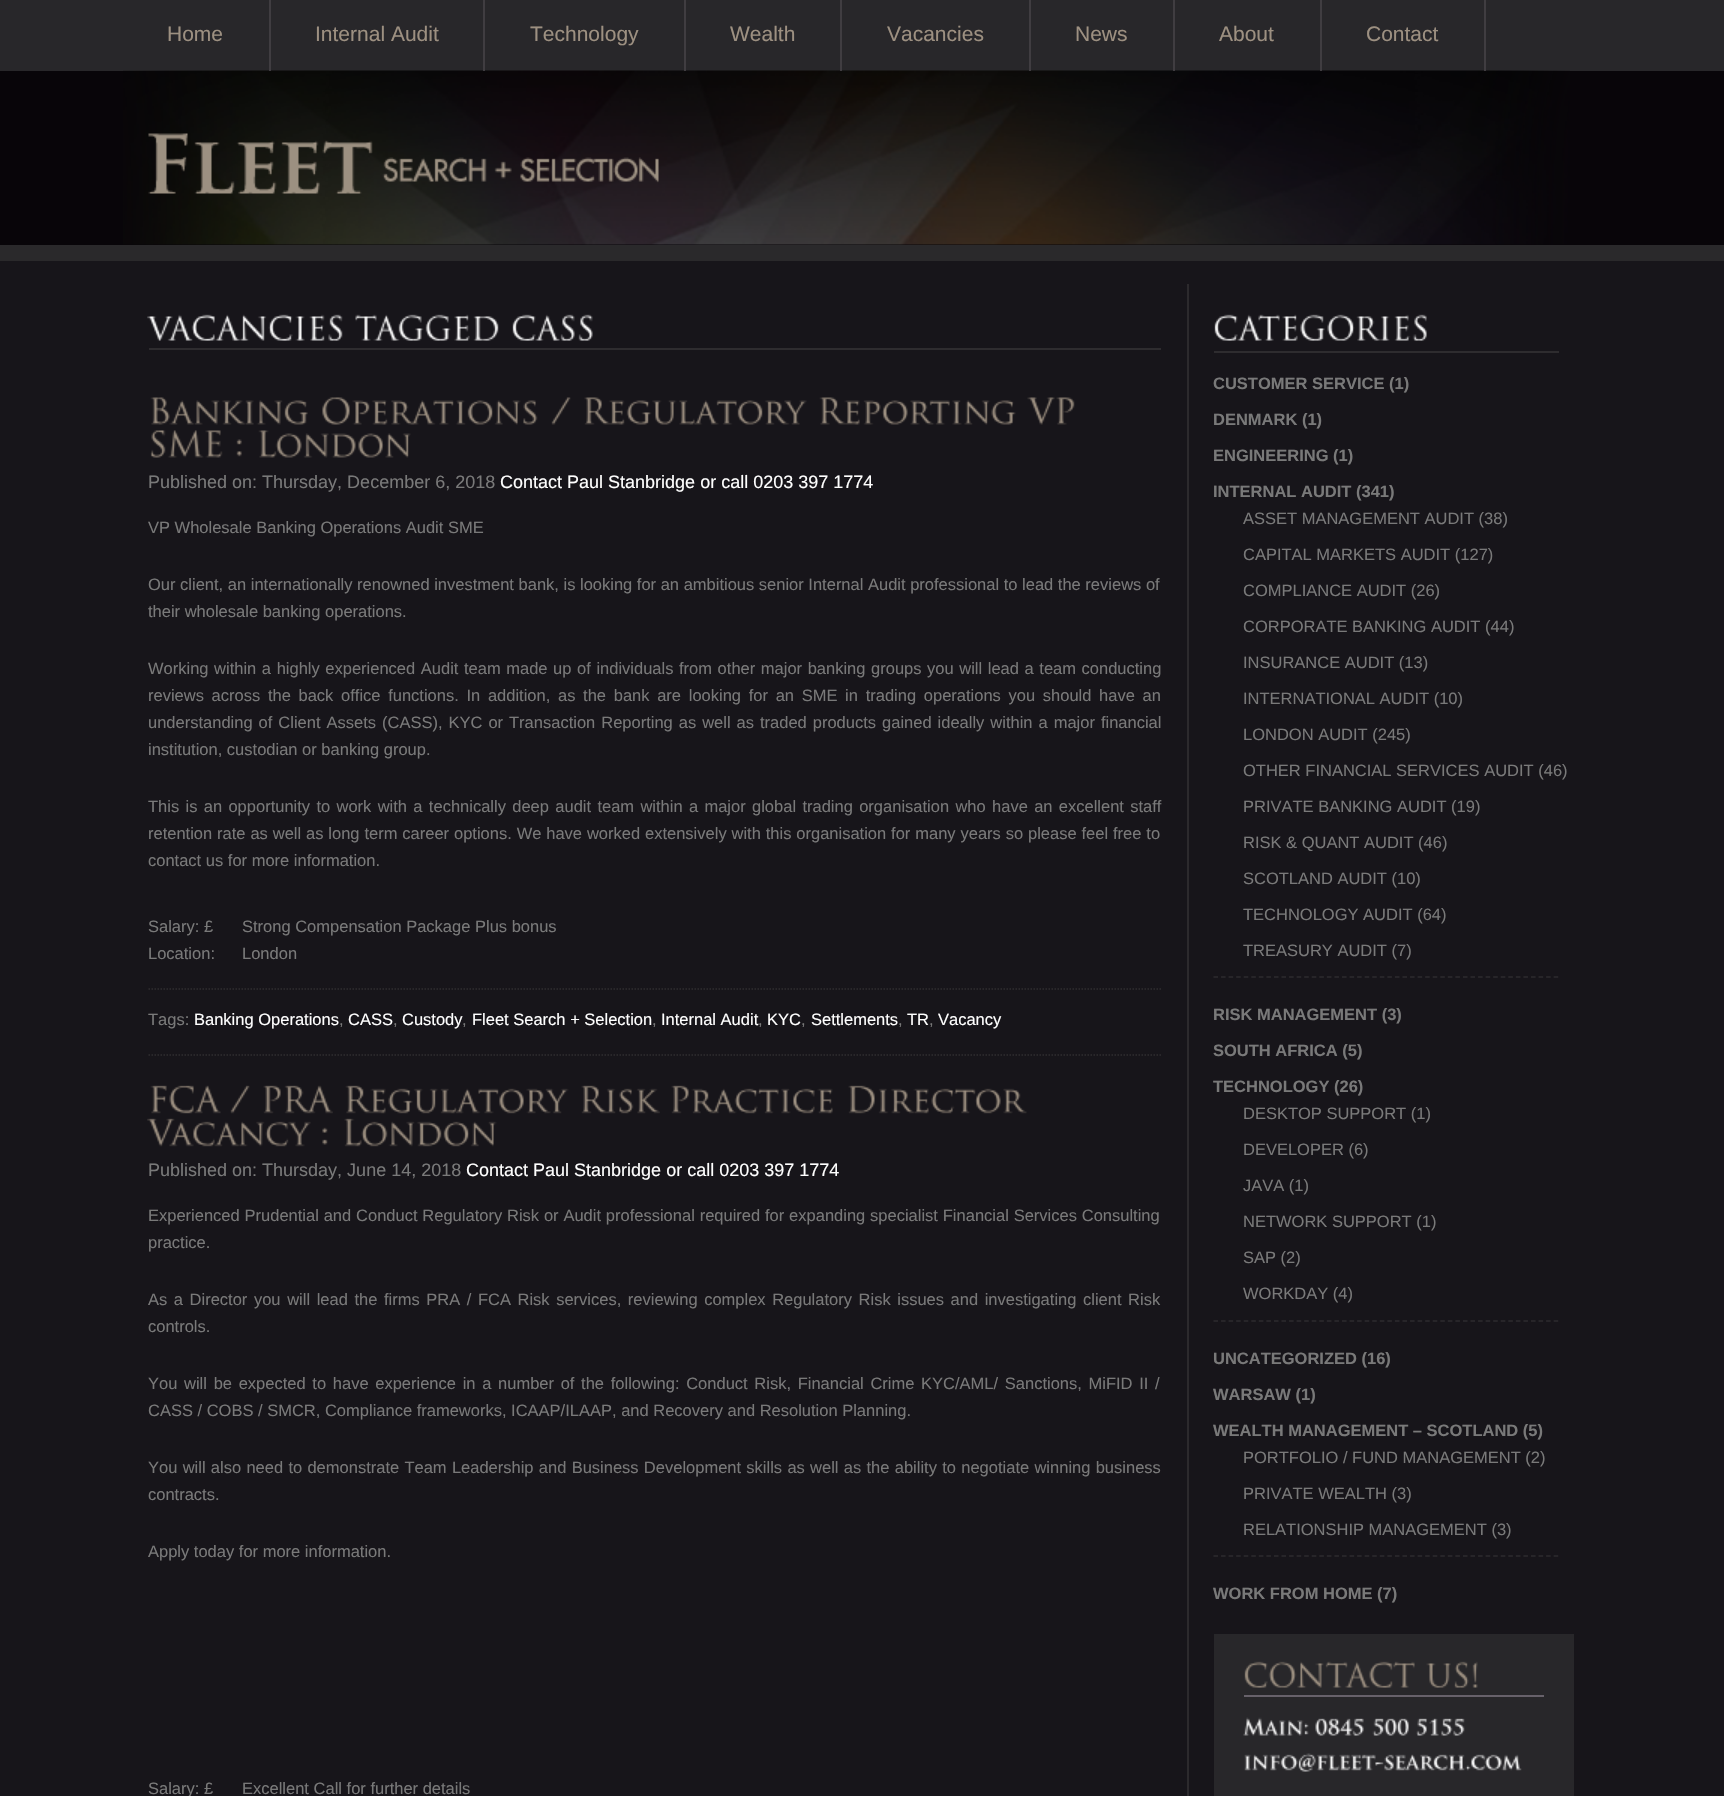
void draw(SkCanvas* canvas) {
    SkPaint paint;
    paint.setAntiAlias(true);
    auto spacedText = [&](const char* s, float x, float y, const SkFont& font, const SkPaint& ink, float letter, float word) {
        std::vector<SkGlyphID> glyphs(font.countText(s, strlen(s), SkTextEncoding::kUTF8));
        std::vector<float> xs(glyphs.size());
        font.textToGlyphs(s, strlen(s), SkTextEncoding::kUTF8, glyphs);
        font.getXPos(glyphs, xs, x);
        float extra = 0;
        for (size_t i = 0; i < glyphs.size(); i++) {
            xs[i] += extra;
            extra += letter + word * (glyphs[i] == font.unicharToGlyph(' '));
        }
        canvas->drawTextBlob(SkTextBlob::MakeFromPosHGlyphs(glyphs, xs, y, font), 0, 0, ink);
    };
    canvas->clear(0xFF17151A);
    paint.setColor(0xFF080509);
    canvas->drawRect(SkRect::MakeXYWH(0, 71, 1724, 174), paint);
    paint.setColor(0xFF28272A);
    canvas->drawRect(SkRect::MakeXYWH(0, 0, 1724, 71), paint);
    paint.setColor(0xFF2A292B);
    canvas->drawRect(SkRect::MakeXYWH(0, 245, 1724, 16), paint);
    canvas->drawImageRect(SkImages::DeferredFromEncodedData(SkData::MakeFromFileName("img1.png")), SkRect::MakeXYWH(123, 70, 1447, 175), SkSamplingOptions());
    paint.setColor(0xFF403D41);
    canvas->drawRect(SkRect::MakeXYWH(269, 0, 2, 71), paint);
    SkFont font1(fontMgr->matchFamilyStyle("Liberation Sans", SkFontStyle::Normal()), 21);
    font1.setSubpixel(true);
    paint.setColor(0xFF9D9081);
    canvas->drawString("Home", 167, 41, font1, paint);
    paint.setColor(0xFF403D41);
    canvas->drawRect(SkRect::MakeXYWH(483, 0, 2, 71), paint);
    paint.setColor(0xFF9D9081);
    canvas->drawString("Internal Audit", 315, 41, font1, paint);
    paint.setColor(0xFF403D41);
    canvas->drawRect(SkRect::MakeXYWH(684, 0, 2, 71), paint);
    paint.setColor(0xFF9D9081);
    canvas->drawString("Technology", 530, 41, font1, paint);
    paint.setColor(0xFF403D41);
    canvas->drawRect(SkRect::MakeXYWH(840, 0, 2, 71), paint);
    paint.setColor(0xFF9D9081);
    canvas->drawString("Wealth", 730, 41, font1, paint);
    paint.setColor(0xFF403D41);
    canvas->drawRect(SkRect::MakeXYWH(1029, 0, 2, 71), paint);
    paint.setColor(0xFF9D9081);
    canvas->drawString("Vacancies", 887, 41, font1, paint);
    paint.setColor(0xFF403D41);
    canvas->drawRect(SkRect::MakeXYWH(1173, 0, 2, 71), paint);
    paint.setColor(0xFF9D9081);
    canvas->drawString("News", 1075, 41, font1, paint);
    paint.setColor(0xFF403D41);
    canvas->drawRect(SkRect::MakeXYWH(1320, 0, 2, 71), paint);
    paint.setColor(0xFF9D9081);
    canvas->drawString("About", 1219, 41, font1, paint);
    paint.setColor(0xFF403D41);
    canvas->drawRect(SkRect::MakeXYWH(1484, 0, 2, 71), paint);
    paint.setColor(0xFF9D9081);
    canvas->drawString("Contact", 1366, 41, font1, paint);
    canvas->drawImageRect(SkImages::DeferredFromEncodedData(SkData::MakeFromFileName("img2.png")), SkRect::MakeXYWH(148, 133, 511, 61), SkSamplingOptions());
    paint.setColor(0xFF2C2A2D);
    canvas->drawRect(SkRect::MakeXYWH(1187, 284, 2, 1512), paint);
    paint.setColor(0xFF2E2C2F);
    canvas->drawRect(SkRect::MakeXYWH(149, 348, 1012, 2), paint);
    canvas->drawImageRect(SkImages::DeferredFromEncodedData(SkData::MakeFromFileName("img3.png")), SkRect::MakeXYWH(147, 314, 196, 27), SkSamplingOptions());
    canvas->drawImageRect(SkImages::DeferredFromEncodedData(SkData::MakeFromFileName("img4.png")), SkRect::MakeXYWH(355, 314, 144, 27), SkSamplingOptions());
    canvas->drawImageRect(SkImages::DeferredFromEncodedData(SkData::MakeFromFileName("img5.png")), SkRect::MakeXYWH(512, 314, 81, 27), SkSamplingOptions());
    canvas->drawImageRect(SkImages::DeferredFromEncodedData(SkData::MakeFromFileName("img6.png")), SkRect::MakeXYWH(150, 397, 158, 28), SkSamplingOptions());
    canvas->drawImageRect(SkImages::DeferredFromEncodedData(SkData::MakeFromFileName("img7.png")), SkRect::MakeXYWH(322, 397, 216, 28), SkSamplingOptions());
    canvas->drawImageRect(SkImages::DeferredFromEncodedData(SkData::MakeFromFileName("img8.png")), SkRect::MakeXYWH(551, 397, 20, 28), SkSamplingOptions());
    canvas->drawImageRect(SkImages::DeferredFromEncodedData(SkData::MakeFromFileName("img9.png")), SkRect::MakeXYWH(584, 397, 223, 28), SkSamplingOptions());
    canvas->drawImageRect(SkImages::DeferredFromEncodedData(SkData::MakeFromFileName("img10.png")), SkRect::MakeXYWH(819, 397, 197, 28), SkSamplingOptions());
    canvas->drawImageRect(SkImages::DeferredFromEncodedData(SkData::MakeFromFileName("img11.png")), SkRect::MakeXYWH(1027, 397, 48, 28), SkSamplingOptions());
    canvas->drawImageRect(SkImages::DeferredFromEncodedData(SkData::MakeFromFileName("img12.png")), SkRect::MakeXYWH(150, 430, 73, 28), SkSamplingOptions());
    canvas->drawImageRect(SkImages::DeferredFromEncodedData(SkData::MakeFromFileName("img13.png")), SkRect::MakeXYWH(236, 439, 6, 18), SkSamplingOptions());
    canvas->drawImageRect(SkImages::DeferredFromEncodedData(SkData::MakeFromFileName("img14.png")), SkRect::MakeXYWH(258, 430, 153, 28), SkSamplingOptions());
    SkFont font2(fontMgr->matchFamilyStyle("Liberation Sans", SkFontStyle::Normal()), 18);
    font2.setSubpixel(true);
    paint.setColor(0xFF797979);
    canvas->drawString("Published on: Thursday, December 6, 2018", 148, 488, font2, paint);
    paint.setColor(0xFFFFFFFF);
    canvas->drawString("Contact Paul Stanbridge or call 0203 397 1774", 500, 488, font2, paint);
    SkFont font3(fontMgr->matchFamilyStyle("Liberation Sans", SkFontStyle::Normal()), 16.5f);
    font3.setSubpixel(true);
    paint.setColor(0xFF797979);
    canvas->drawString("VP Wholesale Banking Operations Audit SME", 148, 533, font3, paint);
    canvas->drawString("Our client, an internationally renowned investment bank, is looking for an ambitious senior Internal Audit professional to lead the reviews of", 148, 590, font3, paint);
    canvas->drawString("their wholesale banking operations.", 148, 617, font3, paint);
    spacedText("Working within a highly experienced Audit team made up of individuals from other major banking groups you will lead a team conducting", 148, 674, font3, paint, 0, 1);
    spacedText("reviews across the back office functions. In addition, as the bank are looking for an SME in trading operations you should have an", 148, 701, font3, paint, 0, 3.1f);
    spacedText("understanding of Client Assets (CASS), KYC or Transaction Reporting as well as traded products gained ideally within a major financial", 148, 728, font3, paint, 0, 1.4f);
    canvas->drawString("institution, custodian or banking group.", 148, 755, font3, paint);
    spacedText("This is an opportunity to work with a technically deep audit team within a major global trading organisation who have an excellent staff", 148, 812, font3, paint, 0, 1.75f);
    spacedText("retention rate as well as long term career options. We have worked extensively with this organisation for many years so please feel free to", 148, 839, font3, paint, 0, 0.3f);
    canvas->drawString("contact us for more information.", 148, 866, font3, paint);
    paint.setStyle(SkPaint::kStroke_Style);
    paint.setStrokeWidth(1.5f);
    paint.setColor(0xFF2E2C2F);
    paint.setPathEffect(SkDashPathEffect::Make({{1.5f, 1.5f}}, 0));
    canvas->drawPath(SkPathBuilder().moveTo(148.5f, 989).lineTo(1161, 989).detach(), paint);
    paint.setPathEffect(nullptr);
    paint.setStyle(SkPaint::kFill_Style);
    paint.setColor(0xFF797979);
    canvas->drawString("Salary: £", 148, 932, font3, paint);
    canvas->drawString("Strong Compensation Package Plus bonus", 242, 932, font3, paint);
    canvas->drawString("Location:", 148, 959, font3, paint);
    canvas->drawString("London", 242, 959, font3, paint);
    paint.setStyle(SkPaint::kStroke_Style);
    paint.setColor(0xFF2E2C2F);
    paint.setPathEffect(SkDashPathEffect::Make({{1.5f, 1.5f}}, 0));
    canvas->drawPath(SkPathBuilder().moveTo(148.5f, 1055).lineTo(1161, 1055).detach(), paint);
    paint.setPathEffect(nullptr);
    paint.setStyle(SkPaint::kFill_Style);
    paint.setColor(0xFF797979);
    canvas->drawString("Tags:", 148, 1025, font3, paint);
    paint.setColor(0xFFFFFFFF);
    canvas->drawString("Banking Operations", 194, 1025, font3, paint);
    paint.setColor(0xFF797979);
    canvas->drawString(",", 339, 1025, font3, paint);
    paint.setColor(0xFFFFFFFF);
    canvas->drawString("CASS", 348, 1025, font3, paint);
    paint.setColor(0xFF797979);
    canvas->drawString(",", 393, 1025, font3, paint);
    paint.setColor(0xFFFFFFFF);
    canvas->drawString("Custody", 402, 1025, font3, paint);
    paint.setColor(0xFF797979);
    canvas->drawString(",", 462, 1025, font3, paint);
    paint.setColor(0xFFFFFFFF);
    canvas->drawString("Fleet Search + Selection", 472, 1025, font3, paint);
    paint.setColor(0xFF797979);
    canvas->drawString(",", 652, 1025, font3, paint);
    paint.setColor(0xFFFFFFFF);
    canvas->drawString("Internal Audit", 661, 1025, font3, paint);
    paint.setColor(0xFF797979);
    canvas->drawString(",", 758, 1025, font3, paint);
    paint.setColor(0xFFFFFFFF);
    canvas->drawString("KYC", 767, 1025, font3, paint);
    paint.setColor(0xFF797979);
    canvas->drawString(",", 801, 1025, font3, paint);
    paint.setColor(0xFFFFFFFF);
    canvas->drawString("Settlements", 811, 1025, font3, paint);
    paint.setColor(0xFF797979);
    canvas->drawString(",", 898, 1025, font3, paint);
    paint.setColor(0xFFFFFFFF);
    canvas->drawString("TR", 907, 1025, font3, paint);
    paint.setColor(0xFF797979);
    canvas->drawString(",", 929, 1025, font3, paint);
    paint.setColor(0xFFFFFFFF);
    canvas->drawString("Vacancy", 938, 1025, font3, paint);
    canvas->drawImageRect(SkImages::DeferredFromEncodedData(SkData::MakeFromFileName("img15.png")), SkRect::MakeXYWH(150, 1085, 71, 29), SkSamplingOptions());
    canvas->drawImageRect(SkImages::DeferredFromEncodedData(SkData::MakeFromFileName("img16.png")), SkRect::MakeXYWH(230, 1085, 20, 29), SkSamplingOptions());
    canvas->drawImageRect(SkImages::DeferredFromEncodedData(SkData::MakeFromFileName("img17.png")), SkRect::MakeXYWH(263, 1085, 70, 29), SkSamplingOptions());
    canvas->drawImageRect(SkImages::DeferredFromEncodedData(SkData::MakeFromFileName("img18.png")), SkRect::MakeXYWH(345, 1085, 224, 29), SkSamplingOptions());
    canvas->drawImageRect(SkImages::DeferredFromEncodedData(SkData::MakeFromFileName("img19.png")), SkRect::MakeXYWH(581, 1085, 79, 29), SkSamplingOptions());
    canvas->drawImageRect(SkImages::DeferredFromEncodedData(SkData::MakeFromFileName("img20.png")), SkRect::MakeXYWH(671, 1085, 162, 29), SkSamplingOptions());
    canvas->drawImageRect(SkImages::DeferredFromEncodedData(SkData::MakeFromFileName("img21.png")), SkRect::MakeXYWH(848, 1085, 179, 29), SkSamplingOptions());
    canvas->drawImageRect(SkImages::DeferredFromEncodedData(SkData::MakeFromFileName("img22.png")), SkRect::MakeXYWH(147, 1118, 164, 29), SkSamplingOptions());
    canvas->drawImageRect(SkImages::DeferredFromEncodedData(SkData::MakeFromFileName("img23.png")), SkRect::MakeXYWH(322, 1127, 6, 18), SkSamplingOptions());
    canvas->drawImageRect(SkImages::DeferredFromEncodedData(SkData::MakeFromFileName("img24.png")), SkRect::MakeXYWH(344, 1118, 153, 29), SkSamplingOptions());
    paint.setColor(0xFF797979);
    canvas->drawString("Published on: Thursday, June 14, 2018", 148, 1176, font2, paint);
    paint.setColor(0xFFFFFFFF);
    canvas->drawString("Contact Paul Stanbridge or call 0203 397 1774", 466, 1176, font2, paint);
    paint.setColor(0xFF797979);
    spacedText("Experienced Prudential and Conduct Regulatory Risk or Audit professional required for expanding specialist Financial Services Consulting", 148, 1221, font3, paint, 0, 0.25f);
    canvas->drawString("practice.", 148, 1248, font3, paint);
    spacedText("As a Director you will lead the firms PRA / FCA Risk services, reviewing complex Regulatory Risk issues and investigating client Risk", 148, 1305, font3, paint, 0, 2);
    canvas->drawString("controls.", 148, 1332, font3, paint);
    spacedText("You will be expected to have experience in a number of the following: Conduct Risk, Financial Crime KYC/AML/ Sanctions, MiFID II /", 148, 1389, font3, paint, 0, 2.1f);
    canvas->drawString("CASS / COBS / SMCR, Compliance frameworks, ICAAP/ILAAP, and Recovery and Resolution Planning.", 148, 1416, font3, paint);
    spacedText("You will also need to demonstrate Team Leadership and Business Development skills as well as the ability to negotiate winning business", 148, 1473, font3, paint, 0, 0.7f);
    canvas->drawString("contracts.", 148, 1500, font3, paint);
    canvas->drawString("Apply today for more information.", 148, 1557, font3, paint);
    canvas->drawString("Salary: £", 148, 1794, font3, paint);
    canvas->drawString("Excellent Call for further details", 242, 1794, font3, paint);
    paint.setColor(0xFF2E2C2F);
    canvas->drawRect(SkRect::MakeXYWH(1214, 351, 345, 2), paint);
    canvas->drawImageRect(SkImages::DeferredFromEncodedData(SkData::MakeFromFileName("img25.png")), SkRect::MakeXYWH(1214, 314, 213, 27), SkSamplingOptions());
    SkFont font4(fontMgr->matchFamilyStyle("Liberation Sans", SkFontStyle::Bold()), 16.5f);
    font4.setSubpixel(true);
    paint.setColor(0xFF797979);
    canvas->drawString("CUSTOMER SERVICE (1)", 1213, 389, font4, paint);
    canvas->drawString("DENMARK (1)", 1213, 425, font4, paint);
    canvas->drawString("ENGINEERING (1)", 1213, 461, font4, paint);
    canvas->drawString("INTERNAL AUDIT (341)", 1213, 497, font4, paint);
    paint.setStyle(SkPaint::kStroke_Style);
    paint.setColor(0xFF2C2A2D);
    paint.setPathEffect(SkDashPathEffect::Make({{4.5f, 3.06f}}, 0));
    canvas->drawPath(SkPathBuilder().moveTo(1213.5f, 977).lineTo(1558.5f, 977).detach(), paint);
    paint.setPathEffect(nullptr);
    paint.setStyle(SkPaint::kFill_Style);
    paint.setColor(0xFF797979);
    canvas->drawString("ASSET MANAGEMENT AUDIT (38)", 1243, 524, font3, paint);
    canvas->drawString("CAPITAL MARKETS AUDIT (127)", 1243, 560, font3, paint);
    canvas->drawString("COMPLIANCE AUDIT (26)", 1243, 596, font3, paint);
    canvas->drawString("CORPORATE BANKING AUDIT (44)", 1243, 632, font3, paint);
    canvas->drawString("INSURANCE AUDIT (13)", 1243, 668, font3, paint);
    canvas->drawString("INTERNATIONAL AUDIT (10)", 1243, 704, font3, paint);
    canvas->drawString("LONDON AUDIT (245)", 1243, 740, font3, paint);
    canvas->drawString("OTHER FINANCIAL SERVICES AUDIT (46)", 1243, 776, font3, paint);
    canvas->drawString("PRIVATE BANKING AUDIT (19)", 1243, 812, font3, paint);
    canvas->drawString("RISK & QUANT AUDIT (46)", 1243, 848, font3, paint);
    canvas->drawString("SCOTLAND AUDIT (10)", 1243, 884, font3, paint);
    canvas->drawString("TECHNOLOGY AUDIT (64)", 1243, 920, font3, paint);
    canvas->drawString("TREASURY AUDIT (7)", 1243, 956, font3, paint);
    canvas->drawString("RISK MANAGEMENT (3)", 1213, 1020, font4, paint);
    canvas->drawString("SOUTH AFRICA (5)", 1213, 1056, font4, paint);
    canvas->drawString("TECHNOLOGY (26)", 1213, 1092, font4, paint);
    paint.setStyle(SkPaint::kStroke_Style);
    paint.setColor(0xFF2C2A2D);
    paint.setPathEffect(SkDashPathEffect::Make({{4.5f, 3.06f}}, 0));
    canvas->drawPath(SkPathBuilder().moveTo(1213.5f, 1321).lineTo(1558.5f, 1321).detach(), paint);
    paint.setPathEffect(nullptr);
    paint.setStyle(SkPaint::kFill_Style);
    paint.setColor(0xFF797979);
    canvas->drawString("DESKTOP SUPPORT (1)", 1243, 1119, font3, paint);
    canvas->drawString("DEVELOPER (6)", 1243, 1155, font3, paint);
    canvas->drawString("JAVA (1)", 1243, 1191, font3, paint);
    canvas->drawString("NETWORK SUPPORT (1)", 1243, 1227, font3, paint);
    canvas->drawString("SAP (2)", 1243, 1263, font3, paint);
    canvas->drawString("WORKDAY (4)", 1243, 1299, font3, paint);
    canvas->drawString("UNCATEGORIZED (16)", 1213, 1364, font4, paint);
    canvas->drawString("WARSAW (1)", 1213, 1400, font4, paint);
    canvas->drawString("WEALTH MANAGEMENT – SCOTLAND (5)", 1213, 1436, font4, paint);
    paint.setStyle(SkPaint::kStroke_Style);
    paint.setColor(0xFF2C2A2D);
    paint.setPathEffect(SkDashPathEffect::Make({{4.5f, 3.06f}}, 0));
    canvas->drawPath(SkPathBuilder().moveTo(1213.5f, 1556).lineTo(1558.5f, 1556).detach(), paint);
    paint.setPathEffect(nullptr);
    paint.setStyle(SkPaint::kFill_Style);
    paint.setColor(0xFF797979);
    canvas->drawString("PORTFOLIO / FUND MANAGEMENT (2)", 1243, 1463, font3, paint);
    canvas->drawString("PRIVATE WEALTH (3)", 1243, 1499, font3, paint);
    canvas->drawString("RELATIONSHIP MANAGEMENT (3)", 1243, 1535, font3, paint);
    canvas->drawString("WORK FROM HOME (7)", 1213, 1599, font4, paint);
    paint.setColor(0xFF28272A);
    canvas->drawRect(SkRect::MakeXYWH(1214, 1634, 360, 162), paint);
    paint.setColor(0xFF67616A);
    canvas->drawRect(SkRect::MakeXYWH(1244, 1695, 300, 2), paint);
    canvas->drawImageRect(SkImages::DeferredFromEncodedData(SkData::MakeFromFileName("img26.png")), SkRect::MakeXYWH(1244, 1661, 171, 27), SkSamplingOptions());
    canvas->drawImageRect(SkImages::DeferredFromEncodedData(SkData::MakeFromFileName("img27.png")), SkRect::MakeXYWH(1426, 1661, 52, 27), SkSamplingOptions());
    canvas->drawImageRect(SkImages::DeferredFromEncodedData(SkData::MakeFromFileName("img28.png")), SkRect::MakeXYWH(1243, 1717, 66, 19), SkSamplingOptions());
    canvas->drawImageRect(SkImages::DeferredFromEncodedData(SkData::MakeFromFileName("img29.png")), SkRect::MakeXYWH(1315, 1718, 49, 18), SkSamplingOptions());
    canvas->drawImageRect(SkImages::DeferredFromEncodedData(SkData::MakeFromFileName("img30.png")), SkRect::MakeXYWH(1372, 1718, 37, 18), SkSamplingOptions());
    canvas->drawImageRect(SkImages::DeferredFromEncodedData(SkData::MakeFromFileName("img31.png")), SkRect::MakeXYWH(1416, 1718, 49, 18), SkSamplingOptions());
    canvas->drawImageRect(SkImages::DeferredFromEncodedData(SkData::MakeFromFileName("img32.png")), SkRect::MakeXYWH(1244, 1753, 278, 19), SkSamplingOptions());
}
